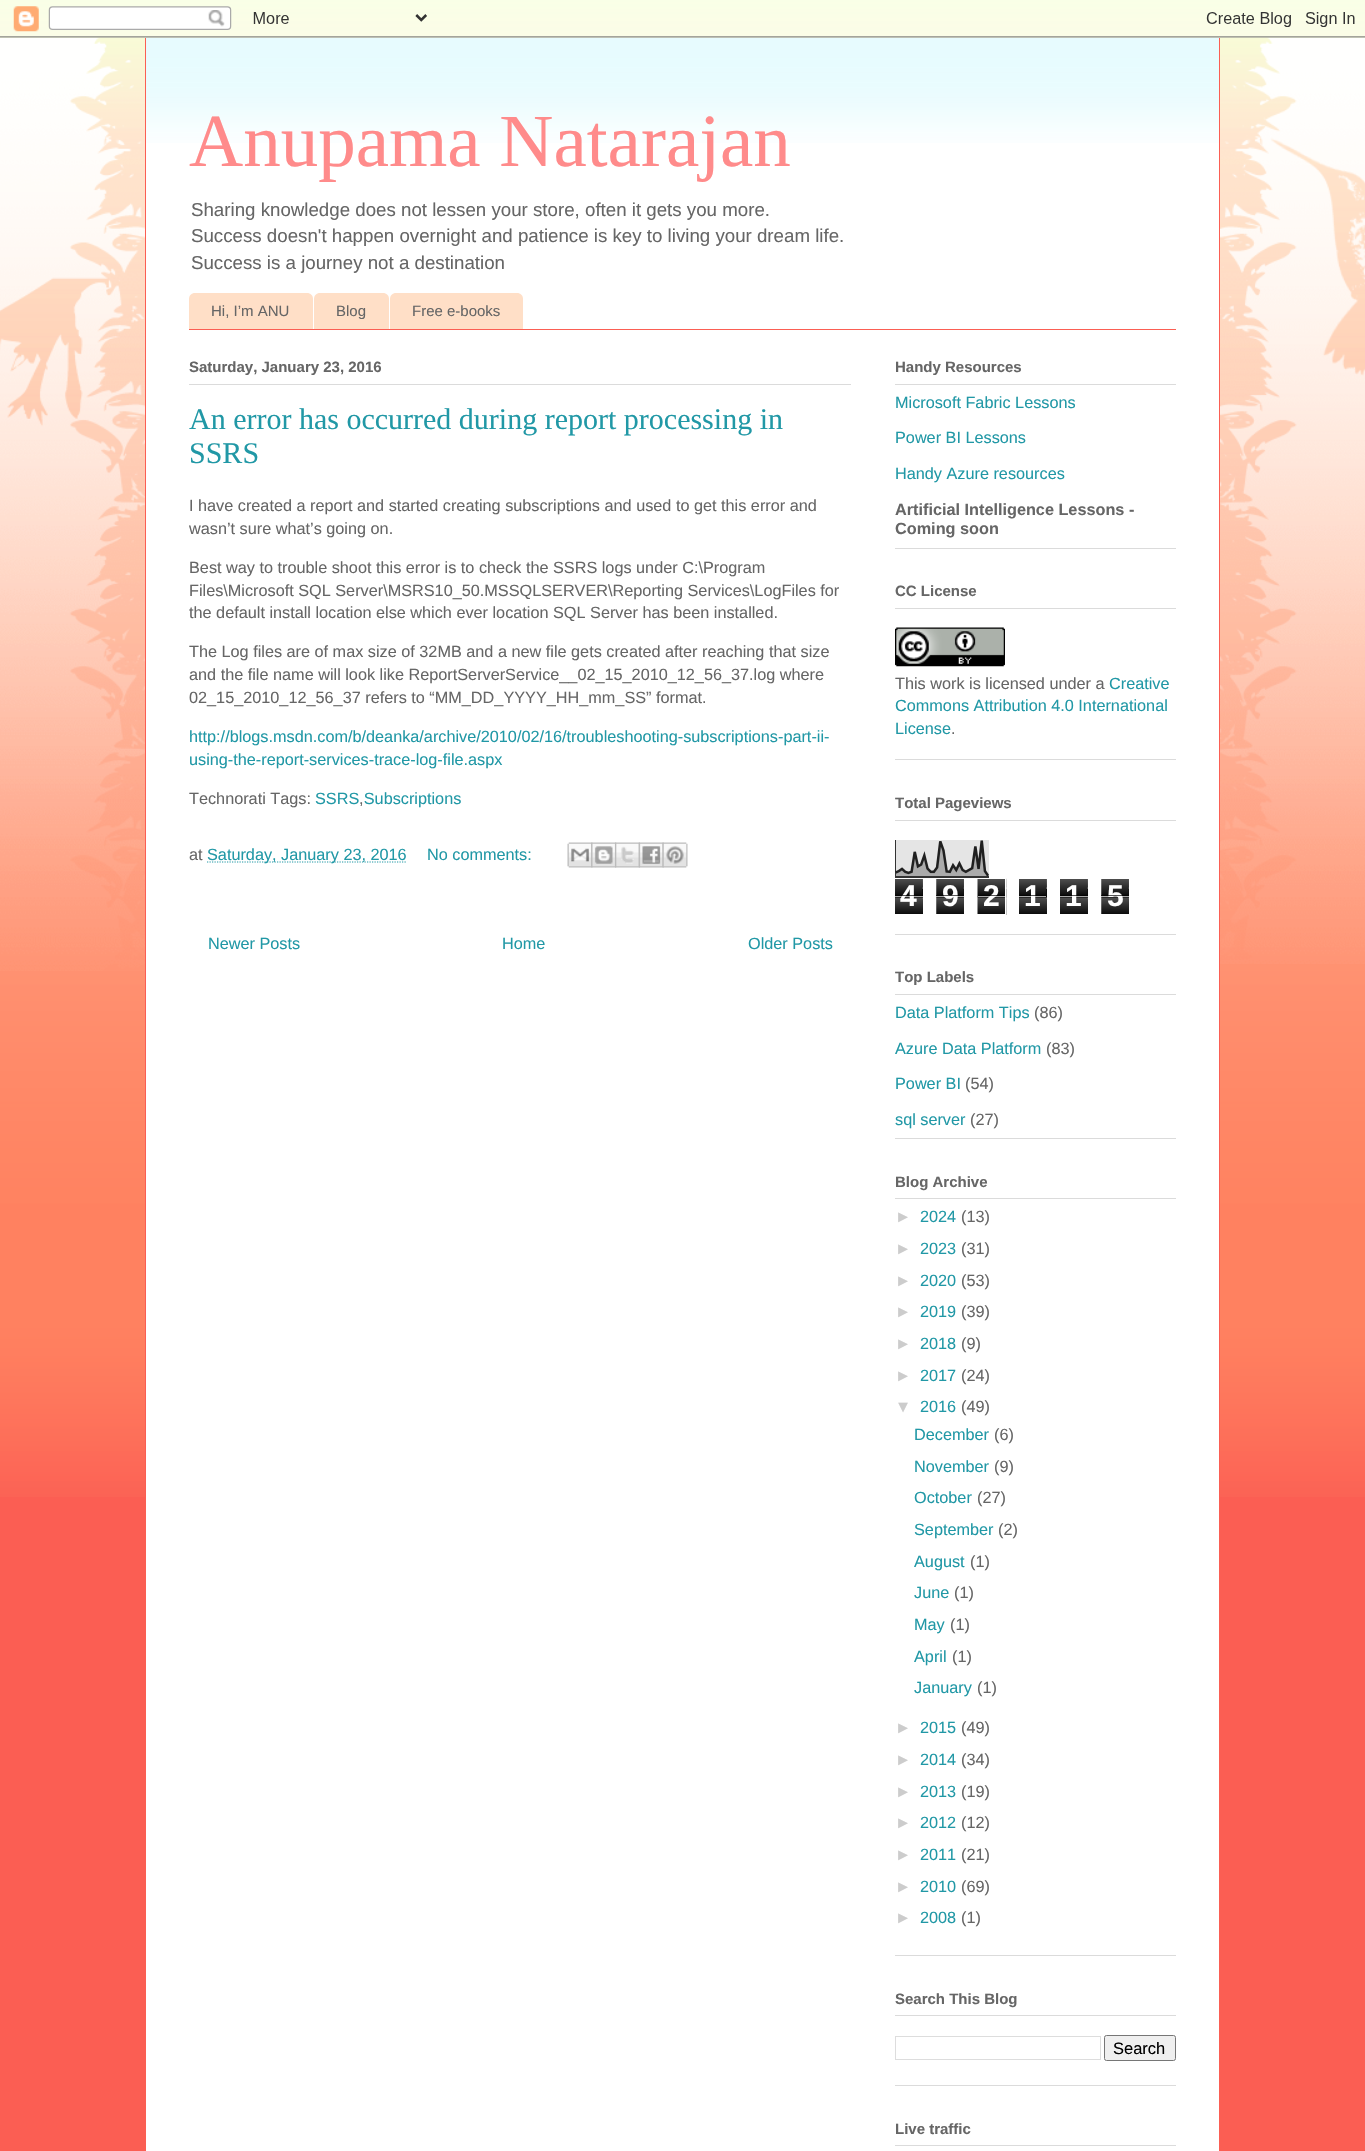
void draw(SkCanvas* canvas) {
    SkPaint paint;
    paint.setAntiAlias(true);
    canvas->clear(0xFFFB5E53);
    canvas->drawImageRect(SkImages::DeferredFromEncodedData(SkData::MakeFromFileName("img1.png")), SkRect::MakeXYWH(0, 0, 1365, 1497), SkSamplingOptions());
    canvas->drawImageRect(SkImages::DeferredFromEncodedData(SkData::MakeFromFileName("img3.png")), SkRect::MakeXYWH(0, 37, 1220, 934), SkSamplingOptions());
    paint.setColor(0xFFFFFFFF);
    canvas->drawRect(SkRect::MakeXYWH(146, 38, 1073, 2113), paint);
    canvas->drawImageRect(SkImages::DeferredFromEncodedData(SkData::MakeFromFileName("img4.png")), SkRect::MakeXYWH(145, 37, 1075, 106), SkSamplingOptions());
    canvas->drawImageRect(SkImages::DeferredFromEncodedData(SkData::MakeFromFileName("img5.png")), SkRect::MakeXYWH(1220, 37, 145, 927), SkSamplingOptions());
    canvas->drawImageRect(SkImages::DeferredFromEncodedData(SkData::MakeFromFileName("img2.png")), SkRect::MakeXYWH(0, 0, 1365, 38), SkSamplingOptions());
    paint.setColor(0xFFFB5E53);
    canvas->drawRect(SkRect::MakeXYWH(1219, 38, 1, 1459), paint);
    canvas->drawRect(SkRect::MakeXYWH(145, 38, 1, 1459), paint);
    SkFont font1(fontMgr->matchFamilyStyle("Liberation Serif", SkFontStyle::Normal()), 75);
    font1.setSubpixel(true);
    paint.setColor(0xFFFF8B8B);
    canvas->drawString("Anupama Natarajan", 189, 166, font1, paint);
    SkFont font2(fontMgr->matchFamilyStyle("Liberation Sans", SkFontStyle::Normal()), 18.7f);
    font2.setSubpixel(true);
    paint.setColor(0xFF666666);
    canvas->drawString("Sharing knowledge does not lessen your store, often it gets you more.", 191, 216, font2, paint);
    canvas->drawString("Success doesn't happen overnight and patience is key to living your dream life.", 191, 242, font2, paint);
    canvas->drawString("Success is a journey not a destination", 191, 269, font2, paint);
    paint.setColor(0xFFFB5E53);
    canvas->drawRect(SkRect::MakeXYWH(189, 329, 987, 1), paint);
    paint.setColor(0xFFFFDFC7);
    canvas->drawPath(SkPathBuilder().moveTo(195, 293).lineTo(307, 293).cubicTo(310.5f, 293, 313, 295.5f, 313, 299).lineTo(313, 329).lineTo(189, 329).lineTo(189, 299).cubicTo(189, 295.5f, 191.5f, 293, 195, 293).close().detach(), paint);
    SkFont font3(fontMgr->matchFamilyStyle("Liberation Sans", SkFontStyle::Normal()), 15);
    font3.setSubpixel(true);
    paint.setColor(0xFF666666);
    canvas->drawString("Hi, I’m ANU", 211, 316, font3, paint);
    paint.setColor(0xFFFFDFC7);
    canvas->drawPath(SkPathBuilder().moveTo(320, 293).lineTo(383, 293).cubicTo(386.5f, 293, 389, 295.5f, 389, 299).lineTo(389, 329).lineTo(314, 329).lineTo(314, 299).cubicTo(314, 295.5f, 316.5f, 293, 320, 293).close().detach(), paint);
    paint.setColor(0xFF666666);
    canvas->drawString("Blog", 336, 316, font3, paint);
    paint.setColor(0xFFFFDFC7);
    canvas->drawPath(SkPathBuilder().moveTo(396, 293).lineTo(517, 293).cubicTo(520.5f, 293, 523, 295.5f, 523, 299).lineTo(523, 329).lineTo(390, 329).lineTo(390, 299).cubicTo(390, 295.5f, 392.5f, 293, 396, 293).close().detach(), paint);
    paint.setColor(0xFF666666);
    canvas->drawString("Free e-books", 412, 316, font3, paint);
    paint.setColor(0xFFDBDBDB);
    canvas->drawRect(SkRect::MakeXYWH(189, 384, 662, 1), paint);
    SkFont font4(fontMgr->matchFamilyStyle("Liberation Sans", SkFontStyle::Bold()), 15);
    font4.setSubpixel(true);
    paint.setColor(0xFF666666);
    canvas->drawString("Saturday, January 23, 2016", 189, 372, font4, paint);
    SkFont font5(fontMgr->matchFamilyStyle("Liberation Serif", SkFontStyle::Normal()), 30);
    font5.setSubpixel(true);
    paint.setColor(0xFF2198A6);
    canvas->drawString("An error has occurred during report processing in", 189, 429, font5, paint);
    canvas->drawString("SSRS", 189, 463, font5, paint);
    SkFont font6(fontMgr->matchFamilyStyle("Liberation Sans", SkFontStyle::Normal()), 16.25f);
    font6.setSubpixel(true);
    paint.setColor(0xFF666666);
    canvas->drawString("I have created a report and started creating subscriptions and used to get this error and", 189, 511, font6, paint);
    canvas->drawString("wasn’t sure what’s going on.", 189, 534, font6, paint);
    canvas->drawString("Best way to trouble shoot this error is to check the SSRS logs under C:\\Program", 189, 573, font6, paint);
    canvas->drawString("Files\\Microsoft SQL Server\\MSRS10_50.MSSQLSERVER\\Reporting Services\\LogFiles for", 189, 596, font6, paint);
    canvas->drawString("the default install location else which ever location SQL Server has been installed.", 189, 618, font6, paint);
    canvas->drawString("The Log files are of max size of 32MB and a new file gets created after reaching that size", 189, 657, font6, paint);
    canvas->drawString("and the file name will look like ReportServerService__02_15_2010_12_56_37.log where", 189, 680, font6, paint);
    canvas->drawString("02_15_2010_12_56_37 refers to “MM_DD_YYYY_HH_mm_SS” format.", 189, 703, font6, paint);
    paint.setColor(0xFF2198A6);
    canvas->drawString("http://blogs.msdn.com/b/deanka/archive/2010/02/16/troubleshooting-subscriptions-part-ii-", 189, 742, font6, paint);
    canvas->drawString("using-the-report-services-trace-log-file.aspx", 189, 765, font6, paint);
    paint.setColor(0xFF666666);
    canvas->drawString("Technorati Tags:", 189, 804, font6, paint);
    paint.setColor(0xFF2198A6);
    canvas->drawString("SSRS Subscriptions", 315, 804, font6, paint);
    paint.setColor(0xFF666666);
    canvas->drawString(",", 359, 804, font6, paint);
    canvas->drawString("at", 189, 860, font6, paint);
    paint.setStyle(SkPaint::kStroke_Style);
    paint.setStrokeWidth(1.2f);
    paint.setColor(0xFF2198A6);
    paint.setPathEffect(SkDashPathEffect::Make({{1.25f, 1.25f}}, 0));
    canvas->drawPath(SkPathBuilder().moveTo(207, 862).lineTo(406.5f, 862).detach(), paint);
    paint.setPathEffect(nullptr);
    paint.setStyle(SkPaint::kFill_Style);
    canvas->drawString("Saturday, January 23, 2016", 207, 860, font6, paint);
    canvas->drawString("No comments:", 427, 860, font6, paint);
    canvas->drawImageRect(SkImages::DeferredFromEncodedData(SkData::MakeFromFileName("img6.png")), SkRect::MakeXYWH(567, 842, 26, 26), SkSamplingOptions());
    canvas->drawImageRect(SkImages::DeferredFromEncodedData(SkData::MakeFromFileName("img7.png")), SkRect::MakeXYWH(591, 842, 26, 26), SkSamplingOptions());
    canvas->drawImageRect(SkImages::DeferredFromEncodedData(SkData::MakeFromFileName("img8.png")), SkRect::MakeXYWH(615, 842, 25, 26), SkSamplingOptions());
    canvas->drawImageRect(SkImages::DeferredFromEncodedData(SkData::MakeFromFileName("img9.png")), SkRect::MakeXYWH(638, 842, 26, 26), SkSamplingOptions());
    canvas->drawImageRect(SkImages::DeferredFromEncodedData(SkData::MakeFromFileName("img10.png")), SkRect::MakeXYWH(662, 842, 26, 26), SkSamplingOptions());
    canvas->drawString("Newer Posts", 208, 949, font6, paint);
    canvas->drawString("Home", 502, 949, font6, paint);
    canvas->drawString("Older Posts", 748, 949, font6, paint);
    paint.setColor(0xFFDBDBDB);
    canvas->drawRect(SkRect::MakeXYWH(895, 548, 281, 1), paint);
    canvas->drawRect(SkRect::MakeXYWH(895, 384, 281, 1), paint);
    paint.setColor(0xFF666666);
    canvas->drawString("Handy Resources", 895, 372, font4, paint);
    paint.setColor(0xFF2198A6);
    canvas->drawString("Microsoft Fabric Lessons", 895, 408, font6, paint);
    canvas->drawString("Power BI Lessons", 895, 443, font6, paint);
    canvas->drawString("Handy Azure resources", 895, 479, font6, paint);
    SkFont font7(fontMgr->matchFamilyStyle("Liberation Sans", SkFontStyle::Bold()), 16.25f);
    font7.setSubpixel(true);
    paint.setColor(0xFF666666);
    canvas->drawString("Artificial Intelligence Lessons -", 895, 515, font7, paint);
    canvas->drawString("Coming soon", 895, 534, font7, paint);
    paint.setColor(0xFFDBDBDB);
    canvas->drawRect(SkRect::MakeXYWH(895, 759, 281, 1), paint);
    canvas->drawRect(SkRect::MakeXYWH(895, 608, 281, 1), paint);
    paint.setColor(0xFF666666);
    canvas->drawString("CC License", 895, 596, font4, paint);
    canvas->drawImageRect(SkImages::DeferredFromEncodedData(SkData::MakeFromFileName("img11.png")), SkRect::MakeXYWH(895, 627, 110, 40), SkSamplingOptions());
    canvas->drawString("This work is licensed under a", 895, 689, font6, paint);
    paint.setColor(0xFF2198A6);
    canvas->drawString("Creative", 1109, 689, font6, paint);
    canvas->drawString("Commons Attribution 4.0 International", 895, 711, font6, paint);
    canvas->drawString("License", 895, 734, font6, paint);
    paint.setColor(0xFF666666);
    canvas->drawString(".", 951, 734, font6, paint);
    paint.setColor(0xFFDBDBDB);
    canvas->drawRect(SkRect::MakeXYWH(895, 934, 281, 1), paint);
    canvas->drawRect(SkRect::MakeXYWH(895, 820, 281, 1), paint);
    paint.setColor(0xFF666666);
    canvas->drawString("Total Pageviews", 895, 808, font4, paint);
    canvas->drawImageRect(SkImages::DeferredFromEncodedData(SkData::MakeFromFileName("img12.png")), SkRect::MakeXYWH(895, 840, 94, 38), SkSamplingOptions());
    canvas->drawImageRect(SkImages::DeferredFromEncodedData(SkData::MakeFromFileName("img13.png")), SkRect::MakeXYWH(895, 879, 28, 35), SkSamplingOptions());
    SkFont font8(fontMgr->matchFamilyStyle("Liberation Sans", SkFontStyle::Bold()), 30);
    font8.setSubpixel(true);
    paint.setColor(0xFFFFFFFF);
    canvas->drawString("4", 900, 906, font8, paint);
    paint.setColor(0xA6000000);
    canvas->drawRect(SkRect::MakeXYWH(895, 895, 28, 1), paint);
    paint.setColor(0xA6FFFFFF);
    canvas->drawRect(SkRect::MakeXYWH(895, 896, 28, 1), paint);
    canvas->drawImageRect(SkImages::DeferredFromEncodedData(SkData::MakeFromFileName("img14.png")), SkRect::MakeXYWH(936, 879, 28, 35), SkSamplingOptions());
    paint.setColor(0xFFFFFFFF);
    canvas->drawString("9", 942, 906, font8, paint);
    paint.setColor(0xA6000000);
    canvas->drawRect(SkRect::MakeXYWH(936, 895, 28, 1), paint);
    paint.setColor(0xA6FFFFFF);
    canvas->drawRect(SkRect::MakeXYWH(936, 896, 28, 1), paint);
    canvas->drawImageRect(SkImages::DeferredFromEncodedData(SkData::MakeFromFileName("img15.png")), SkRect::MakeXYWH(977, 878, 30, 37), SkSamplingOptions());
    paint.setStyle(SkPaint::kStroke_Style);
    paint.setStrokeWidth(1);
    paint.setColor(0xFFFFFFFF);
    canvas->drawRect(SkRect::MakeXYWH(976.5f, 878.5f, 29, 36), paint);
    paint.setStyle(SkPaint::kFill_Style);
    canvas->drawString("2", 983, 906, font8, paint);
    paint.setColor(0xA6000000);
    canvas->drawRect(SkRect::MakeXYWH(978, 895, 27, 1), paint);
    paint.setColor(0xA6FFFFFF);
    canvas->drawRect(SkRect::MakeXYWH(978, 896, 27, 1), paint);
    canvas->drawImageRect(SkImages::DeferredFromEncodedData(SkData::MakeFromFileName("img16.png")), SkRect::MakeXYWH(1019, 879, 28, 35), SkSamplingOptions());
    paint.setColor(0xFFFFFFFF);
    canvas->drawString("1", 1024, 906, font8, paint);
    paint.setColor(0xA6000000);
    canvas->drawRect(SkRect::MakeXYWH(1019, 895, 27, 1), paint);
    paint.setColor(0xA6FFFFFF);
    canvas->drawRect(SkRect::MakeXYWH(1019, 896, 27, 1), paint);
    canvas->drawImageRect(SkImages::DeferredFromEncodedData(SkData::MakeFromFileName("img13.png")), SkRect::MakeXYWH(1060, 879, 28, 35), SkSamplingOptions());
    paint.setColor(0xFFFFFFFF);
    canvas->drawString("1", 1065, 906, font8, paint);
    paint.setColor(0xA6000000);
    canvas->drawRect(SkRect::MakeXYWH(1060, 895, 28, 1), paint);
    paint.setColor(0xA6FFFFFF);
    canvas->drawRect(SkRect::MakeXYWH(1060, 896, 28, 1), paint);
    canvas->drawImageRect(SkImages::DeferredFromEncodedData(SkData::MakeFromFileName("img14.png")), SkRect::MakeXYWH(1101, 879, 28, 35), SkSamplingOptions());
    paint.setColor(0xFFFFFFFF);
    canvas->drawString("5", 1107, 906, font8, paint);
    paint.setColor(0xA6000000);
    canvas->drawRect(SkRect::MakeXYWH(1101, 895, 28, 1), paint);
    paint.setColor(0xA6FFFFFF);
    canvas->drawRect(SkRect::MakeXYWH(1101, 896, 28, 1), paint);
    paint.setColor(0xFFDBDBDB);
    canvas->drawRect(SkRect::MakeXYWH(895, 1138, 281, 1), paint);
    canvas->drawRect(SkRect::MakeXYWH(895, 994, 281, 1), paint);
    paint.setColor(0xFF666666);
    canvas->drawString("Top Labels", 895, 982, font4, paint);
    paint.setColor(0xFF2198A6);
    canvas->drawString("Data Platform Tips", 895, 1018, font6, paint);
    paint.setColor(0xFF666666);
    canvas->drawString("(86)", 1034, 1018, font6, paint);
    paint.setColor(0xFF2198A6);
    canvas->drawString("Azure Data Platform", 895, 1054, font6, paint);
    paint.setColor(0xFF666666);
    canvas->drawString("(83)", 1046, 1054, font6, paint);
    paint.setColor(0xFF2198A6);
    canvas->drawString("Power BI", 895, 1089, font6, paint);
    paint.setColor(0xFF666666);
    canvas->drawString("(54)", 965, 1089, font6, paint);
    paint.setColor(0xFF2198A6);
    canvas->drawString("sql server", 895, 1125, font6, paint);
    paint.setColor(0xFF666666);
    canvas->drawString("(27)", 970, 1125, font6, paint);
    paint.setColor(0xFFDBDBDB);
    canvas->drawRect(SkRect::MakeXYWH(895, 1955, 281, 1), paint);
    canvas->drawRect(SkRect::MakeXYWH(895, 1198, 281, 1), paint);
    paint.setColor(0xFF666666);
    canvas->drawString("Blog Archive", 895, 1187, font4, paint);
    paint.setColor(0xFFCCCCCC);
    canvas->drawString("►", 895, 1222, font6, paint);
    paint.setColor(0xFF2198A6);
    canvas->drawString("2024", 920, 1222, font6, paint);
    paint.setColor(0xFF666666);
    canvas->drawString("(13)", 961, 1222, font6, paint);
    paint.setColor(0xFFCCCCCC);
    canvas->drawString("►", 895, 1254, font6, paint);
    paint.setColor(0xFF2198A6);
    canvas->drawString("2023", 920, 1254, font6, paint);
    paint.setColor(0xFF666666);
    canvas->drawString("(31)", 961, 1254, font6, paint);
    paint.setColor(0xFFCCCCCC);
    canvas->drawString("►", 895, 1286, font6, paint);
    paint.setColor(0xFF2198A6);
    canvas->drawString("2020", 920, 1286, font6, paint);
    paint.setColor(0xFF666666);
    canvas->drawString("(53)", 961, 1286, font6, paint);
    paint.setColor(0xFFCCCCCC);
    canvas->drawString("►", 895, 1317, font6, paint);
    paint.setColor(0xFF2198A6);
    canvas->drawString("2019", 920, 1317, font6, paint);
    paint.setColor(0xFF666666);
    canvas->drawString("(39)", 961, 1317, font6, paint);
    paint.setColor(0xFFCCCCCC);
    canvas->drawString("►", 895, 1349, font6, paint);
    paint.setColor(0xFF2198A6);
    canvas->drawString("2018", 920, 1349, font6, paint);
    paint.setColor(0xFF666666);
    canvas->drawString("(9)", 961, 1349, font6, paint);
    paint.setColor(0xFFCCCCCC);
    canvas->drawString("►", 895, 1381, font6, paint);
    paint.setColor(0xFF2198A6);
    canvas->drawString("2017", 920, 1381, font6, paint);
    paint.setColor(0xFF666666);
    canvas->drawString("(24)", 961, 1381, font6, paint);
    paint.setColor(0xFFCCCCCC);
    canvas->drawString("▼", 895, 1412, font6, paint);
    paint.setColor(0xFF2198A6);
    canvas->drawString("2016", 920, 1412, font6, paint);
    paint.setColor(0xFF666666);
    canvas->drawString("(49)", 961, 1412, font6, paint);
    paint.setColor(0xFF2198A6);
    canvas->drawString("December", 914, 1440, font6, paint);
    paint.setColor(0xFF666666);
    canvas->drawString("(6)", 994, 1440, font6, paint);
    paint.setColor(0xFF2198A6);
    canvas->drawString("November", 914, 1472, font6, paint);
    paint.setColor(0xFF666666);
    canvas->drawString("(9)", 994, 1472, font6, paint);
    paint.setColor(0xFF2198A6);
    canvas->drawString("October", 914, 1503, font6, paint);
    paint.setColor(0xFF666666);
    canvas->drawString("(27)", 977, 1503, font6, paint);
    paint.setColor(0xFF2198A6);
    canvas->drawString("September", 914, 1535, font6, paint);
    paint.setColor(0xFF666666);
    canvas->drawString("(2)", 998, 1535, font6, paint);
    paint.setColor(0xFF2198A6);
    canvas->drawString("August", 914, 1567, font6, paint);
    paint.setColor(0xFF666666);
    canvas->drawString("(1)", 970, 1567, font6, paint);
    paint.setColor(0xFF2198A6);
    canvas->drawString("June", 914, 1598, font6, paint);
    paint.setColor(0xFF666666);
    canvas->drawString("(1)", 954, 1598, font6, paint);
    paint.setColor(0xFF2198A6);
    canvas->drawString("May", 914, 1630, font6, paint);
    paint.setColor(0xFF666666);
    canvas->drawString("(1)", 950, 1630, font6, paint);
    paint.setColor(0xFF2198A6);
    canvas->drawString("April", 914, 1662, font6, paint);
    paint.setColor(0xFF666666);
    canvas->drawString("(1)", 952, 1662, font6, paint);
    paint.setColor(0xFF2198A6);
    canvas->drawString("January", 914, 1693, font6, paint);
    paint.setColor(0xFF666666);
    canvas->drawString("(1)", 977, 1693, font6, paint);
    paint.setColor(0xFFCCCCCC);
    canvas->drawString("►", 895, 1733, font6, paint);
    paint.setColor(0xFF2198A6);
    canvas->drawString("2015", 920, 1733, font6, paint);
    paint.setColor(0xFF666666);
    canvas->drawString("(49)", 961, 1733, font6, paint);
    paint.setColor(0xFFCCCCCC);
    canvas->drawString("►", 895, 1765, font6, paint);
    paint.setColor(0xFF2198A6);
    canvas->drawString("2014", 920, 1765, font6, paint);
    paint.setColor(0xFF666666);
    canvas->drawString("(34)", 961, 1765, font6, paint);
    paint.setColor(0xFFCCCCCC);
    canvas->drawString("►", 895, 1797, font6, paint);
    paint.setColor(0xFF2198A6);
    canvas->drawString("2013", 920, 1797, font6, paint);
    paint.setColor(0xFF666666);
    canvas->drawString("(19)", 961, 1797, font6, paint);
    paint.setColor(0xFFCCCCCC);
    canvas->drawString("►", 895, 1828, font6, paint);
    paint.setColor(0xFF2198A6);
    canvas->drawString("2012", 920, 1828, font6, paint);
    paint.setColor(0xFF666666);
    canvas->drawString("(12)", 961, 1828, font6, paint);
    paint.setColor(0xFFCCCCCC);
    canvas->drawString("►", 895, 1860, font6, paint);
    paint.setColor(0xFF2198A6);
    canvas->drawString("2011", 920, 1860, font6, paint);
    paint.setColor(0xFF666666);
    canvas->drawString("(21)", 961, 1860, font6, paint);
    paint.setColor(0xFFCCCCCC);
    canvas->drawString("►", 895, 1892, font6, paint);
    paint.setColor(0xFF2198A6);
    canvas->drawString("2010", 920, 1892, font6, paint);
    paint.setColor(0xFF666666);
    canvas->drawString("(69)", 961, 1892, font6, paint);
    paint.setColor(0xFFCCCCCC);
    canvas->drawString("►", 895, 1923, font6, paint);
    paint.setColor(0xFF2198A6);
    canvas->drawString("2008", 920, 1923, font6, paint);
    paint.setColor(0xFF666666);
    canvas->drawString("(1)", 961, 1923, font6, paint);
    paint.setColor(0xFFDBDBDB);
    canvas->drawRect(SkRect::MakeXYWH(895, 2085, 281, 1), paint);
    canvas->drawRect(SkRect::MakeXYWH(895, 2015, 281, 1), paint);
    paint.setColor(0xFF666666);
    canvas->drawString("Search This Blog", 895, 2004, font4, paint);
    paint.setStyle(SkPaint::kStroke_Style);
    paint.setColor(0xFFDDDDDD);
    canvas->drawRect(SkRect::MakeXYWH(895.5f, 2036.5f, 205, 23), paint);
    paint.setStyle(SkPaint::kFill_Style);
    paint.setColor(0xFFEFEFEF);
    canvas->drawRoundRect(SkRect::MakeXYWH(1104.5f, 2035.5f, 71, 25), 2, 2, paint);
    paint.setStyle(SkPaint::kStroke_Style);
    paint.setColor(0xFF767676);
    canvas->drawRoundRect(SkRect::MakeXYWH(1104.5f, 2035.5f, 71, 25), 2, 2, paint);
    SkFont font9(fontMgr->matchFamilyStyle("Liberation Sans", SkFontStyle::Normal()), 16.5f);
    font9.setSubpixel(true);
    paint.setStyle(SkPaint::kFill_Style);
    paint.setColor(0xFF000000);
    canvas->drawString("Search", 1113, 2054, font9, paint);
    paint.setColor(0xFFDBDBDB);
    canvas->drawRect(SkRect::MakeXYWH(895, 2145, 281, 1), paint);
    paint.setColor(0xFF666666);
    canvas->drawString("Live traffic", 895, 2134, font4, paint);
}
